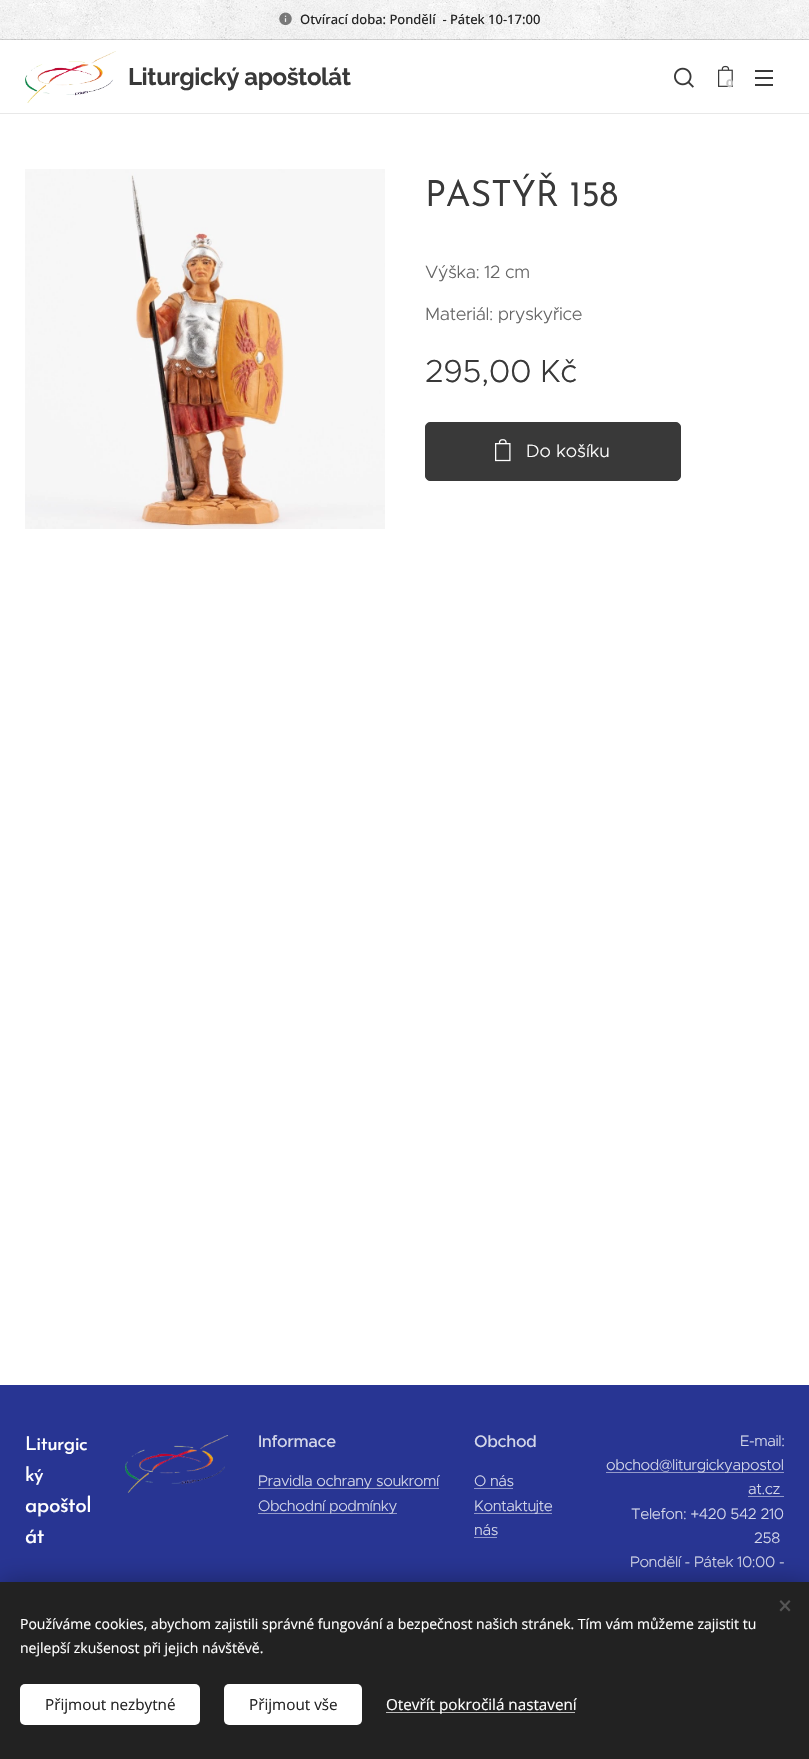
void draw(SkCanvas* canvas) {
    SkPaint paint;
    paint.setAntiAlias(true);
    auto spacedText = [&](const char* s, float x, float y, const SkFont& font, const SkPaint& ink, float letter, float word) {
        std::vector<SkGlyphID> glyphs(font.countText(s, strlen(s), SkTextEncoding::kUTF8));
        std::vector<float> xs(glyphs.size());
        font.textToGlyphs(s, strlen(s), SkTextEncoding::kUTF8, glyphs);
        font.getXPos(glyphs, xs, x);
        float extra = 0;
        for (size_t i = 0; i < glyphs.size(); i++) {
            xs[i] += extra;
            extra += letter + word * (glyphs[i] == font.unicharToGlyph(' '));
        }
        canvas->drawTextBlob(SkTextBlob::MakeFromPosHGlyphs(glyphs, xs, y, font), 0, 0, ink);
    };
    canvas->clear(0xFFFFFFFF);
    canvas->drawImageRect(SkImages::DeferredFromEncodedData(SkData::MakeFromFileName("img1.png")), SkRect::MakeXYWH(0, 0, 809, 40), SkSamplingOptions());
    canvas->drawImageRect(SkImages::DeferredFromEncodedData(SkData::MakeFromFileName("img2.png")), SkRect::MakeXYWH(279, 12, 13, 14), SkSamplingOptions());
    SkFont font1(fontMgr->matchFamilyStyle("Open Sans", SkFontStyle(500, SkFontStyle::kNormal_Width, SkFontStyle::kUpright_Slant)), 13);
    font1.setSubpixel(true);
    paint.setColor(0xFF242424);
    canvas->drawString("Otvírací doba: Pondělí  - Pátek 10-17:00", 300, 24, font1, paint);
    paint.setColor(0x26000000);
    canvas->drawRect(SkRect::MakeXYWH(0, 39, 809, 1), paint);
    canvas->drawImageRect(SkImages::DeferredFromEncodedData(SkData::MakeFromFileName("img3.png")), SkRect::MakeXYWH(25, 51, 91, 52), SkSamplingOptions());
    SkFont font2(fontMgr->matchFamilyStyle("Raleway", SkFontStyle::Bold()), 24);
    font2.setSubpixel(true);
    paint.setColor(0xFF393939);
    spacedText("Liturgický apoštolát", 128, 85, font2, paint, -0.4f, 0);
    canvas->drawImageRect(SkImages::DeferredFromEncodedData(SkData::MakeFromFileName("img4.png")), SkRect::MakeXYWH(674, 67, 20, 21), SkSamplingOptions());
    canvas->drawImageRect(SkImages::DeferredFromEncodedData(SkData::MakeFromFileName("img5.png")), SkRect::MakeXYWH(718, 65, 15, 22), SkSamplingOptions());
    SkFont font3(fontMgr->matchFamilyStyle("Montserrat", SkFontStyle::Bold()), 11);
    font3.setSubpixel(true);
    paint.setColor(0xFFC5C5C5);
    canvas->drawString("0", 726, 87, font3, paint);
    paint.setColor(0xFF393939);
    canvas->drawRect(SkRect::MakeXYWH(755, 77, 18, 2), paint);
    canvas->drawRect(SkRect::MakeXYWH(755, 70, 18, 2), paint);
    canvas->drawRect(SkRect::MakeXYWH(755, 84, 18, 2), paint);
    paint.setColor(0xFFE8E8E8);
    canvas->drawRect(SkRect::MakeXYWH(0, 113, 809, 1), paint);
    canvas->drawImageRect(SkImages::DeferredFromEncodedData(SkData::MakeFromFileName("img6.png")), SkRect::MakeXYWH(25, 169, 360, 360), SkSamplingOptions());
    SkFont font4(fontMgr->matchFamilyStyle("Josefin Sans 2", SkFontStyle::Normal()), 36);
    font4.setSubpixel(true);
    paint.setColor(0xFF393939);
    spacedText("PASTÝŘ 158", 425, 206, font4, paint, -0.4f, 0);
    SkFont font5(fontMgr->matchFamilyStyle("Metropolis", SkFontStyle(300, SkFontStyle::kNormal_Width, SkFontStyle::kUpright_Slant)), 18);
    font5.setSubpixel(true);
    paint.setColor(0xFF666666);
    spacedText("Výška: 12 cm", 425, 278, font5, paint, -0.4f, 0);
    spacedText("Materiál: pryskyřice", 425, 320, font5, paint, -0.4f, 0);
    SkFont font6(fontMgr->matchFamilyStyle("Metropolis", SkFontStyle(300, SkFontStyle::kNormal_Width, SkFontStyle::kUpright_Slant)), 32);
    font6.setSubpixel(true);
    paint.setColor(0xFF393939);
    spacedText("295,00 Kč", 425, 382, font6, paint, -0.4f, 0);
    canvas->drawRoundRect(SkRect::MakeXYWH(425.5f, 422.5f, 255, 58), 4.5f, 4.5f, paint);
    paint.setStyle(SkPaint::kStroke_Style);
    paint.setStrokeWidth(1);
    canvas->drawRoundRect(SkRect::MakeXYWH(425.5f, 422.5f, 255, 58), 4.5f, 4.5f, paint);
    canvas->drawImageRect(SkImages::DeferredFromEncodedData(SkData::MakeFromFileName("img7.png")), SkRect::MakeXYWH(495, 439, 16, 23), SkSamplingOptions());
    paint.setStyle(SkPaint::kFill_Style);
    paint.setColor(0xFFFFFFFF);
    canvas->drawString("Do košíku", 526, 457, font5, paint);
    paint.setColor(0xFF283593);
    canvas->drawRect(SkRect::MakeXYWH(0, 1385, 809, 197), paint);
    SkFont font7(fontMgr->matchFamilyStyle("Josefin Sans", SkFontStyle::Normal()), 19);
    font7.setSubpixel(true);
    paint.setColor(0xFFFFFFFF);
    spacedText("Liturgic", 25, 1450, font7, paint, -0.5f, 0);
    spacedText("ký", 25, 1481, font7, paint, -0.5f, 0);
    SkFont font8(fontMgr->matchFamilyStyle("Josefin Sans", SkFontStyle::Normal()), 21);
    font8.setSubpixel(true);
    spacedText("apoštol", 25, 1512, font8, paint, -0.5f, 0);
    spacedText("át", 25, 1543, font8, paint, -0.5f, 0);
    canvas->drawImageRect(SkImages::DeferredFromEncodedData(SkData::MakeFromFileName("img8.png")), SkRect::MakeXYWH(125, 1435, 103, 58), SkSamplingOptions());
    SkFont font9(fontMgr->matchFamilyStyle("Metropolis", SkFontStyle(500, SkFontStyle::kNormal_Width, SkFontStyle::kUpright_Slant)), 16.75f);
    font9.setSubpixel(true);
    paint.setColor(0xFFD4D7E9);
    spacedText("Informace", 258, 1447, font9, paint, -0.4f, 0);
    paint.setColor(0xFF949AC9);
    canvas->drawRect(SkRect::MakeXYWH(258, 1488, 181, 1), paint);
    SkFont font10(fontMgr->matchFamilyStyle("Metropolis", SkFontStyle(300, SkFontStyle::kNormal_Width, SkFontStyle::kUpright_Slant)), 15.25f);
    font10.setSubpixel(true);
    paint.setColor(0xFFD4D7E9);
    spacedText("Pravidla ochrany soukromí", 258, 1486, font10, paint, -0.4f, 0);
    paint.setColor(0xFF949AC9);
    canvas->drawRect(SkRect::MakeXYWH(258, 1513, 139, 1), paint);
    paint.setColor(0xFFD4D7E9);
    spacedText("Obchodní podmínky", 258, 1511, font10, paint, -0.4f, 0);
    spacedText("Obchod", 474, 1447, font9, paint, -0.4f, 0);
    spacedText("O nás", 474, 1486, font10, paint, -0.4f, 0);
    paint.setColor(0xFF949AC9);
    canvas->drawRect(SkRect::MakeXYWH(474, 1488, 39, 1), paint);
    canvas->drawRect(SkRect::MakeXYWH(474, 1513, 78, 1), paint);
    paint.setColor(0xFFD4D7E9);
    spacedText("Kontaktujte", 474, 1511, font10, paint, -0.4f, 0);
    spacedText("nás", 474, 1535, font10, paint, -0.4f, 0);
    paint.setColor(0xFF949AC9);
    canvas->drawRect(SkRect::MakeXYWH(474, 1537, 23, 1), paint);
    paint.setColor(0xFFD4D7E9);
    spacedText("E-mail:", 740, 1446, font10, paint, -0.4f, 0);
    paint.setColor(0xFF949AC9);
    canvas->drawRect(SkRect::MakeXYWH(606, 1472, 178, 1), paint);
    paint.setColor(0xFFD4D7E9);
    spacedText("obchod@liturgickyapostol", 606, 1470, font10, paint, -0.4f, 0);
    spacedText("at.cz", 748, 1494, font10, paint, -0.4f, 0);
    paint.setColor(0xFF949AC9);
    canvas->drawRect(SkRect::MakeXYWH(748, 1496, 36, 1), paint);
    paint.setColor(0xFFD4D7E9);
    spacedText("Telefon: +420 542 210", 631, 1519, font10, paint, -0.4f, 0);
    spacedText("258", 754, 1543, font10, paint, -0.4f, 0);
    spacedText("Pondělí - Pátek 10:00 -", 630, 1567, font10, paint, -0.4f, 0);
    paint.setColor(0x54000000);
    paint.setMaskFilter(SkMaskFilter::MakeBlur(kNormal_SkBlurStyle, 12.5f));
    canvas->drawRect(SkRect::MakeXYWH(0, 1582, 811, 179), paint);
    paint.setMaskFilter(nullptr);
    paint.setColor(0xFF222222);
    canvas->drawRect(SkRect::MakeXYWH(0, 1582, 809, 177), paint);
    paint.setColor(0xFF555555);
    canvas->drawPath(SkPathBuilder().moveTo(779.5f, 1610).lineTo(789, 1600).lineTo(790.5f, 1601.5f).lineTo(781, 1611.5f).close().detach(), paint);
    canvas->drawPath(SkPathBuilder().moveTo(781, 1600).lineTo(790.5f, 1610).lineTo(789, 1611.5f).lineTo(779.5f, 1601.5f).close().detach(), paint);
    SkFont font11(fontMgr->matchFamilyStyle("Open Sans", SkFontStyle::Normal()), 14);
    font11.setSubpixel(true);
    paint.setColor(0xFFFFFFFF);
    canvas->drawString("Používáme cookies, abychom zajistili správné fungování a bezpečnost našich stránek. Tím vám můžeme zajistit tu", 20, 1629, font11, paint);
    canvas->drawString("nejlepší zkušenost při jejich návštěvě.", 20, 1653, font11, paint);
    canvas->drawRoundRect(SkRect::MakeXYWH(20, 1684, 180, 41), 5, 5, paint);
    SkFont font12(fontMgr->matchFamilyStyle("Open Sans", SkFontStyle::Normal()), 15.25f);
    font12.setSubpixel(true);
    paint.setColor(0xFF242424);
    canvas->drawString("Přijmout nezbytné", 45, 1710, font12, paint);
    paint.setColor(0xFFFFFFFF);
    canvas->drawRoundRect(SkRect::MakeXYWH(224, 1684, 138, 41), 5, 5, paint);
    paint.setColor(0xFF242424);
    canvas->drawString("Přijmout vše", 249, 1710, font12, paint);
    paint.setColor(0xFFBDBDBD);
    canvas->drawRect(SkRect::MakeXYWH(386, 1712, 189, 1), paint);
    paint.setColor(0xFFFFFFFF);
    canvas->drawString("Otevřít pokročilá nastavení", 386, 1710, font12, paint);
}
